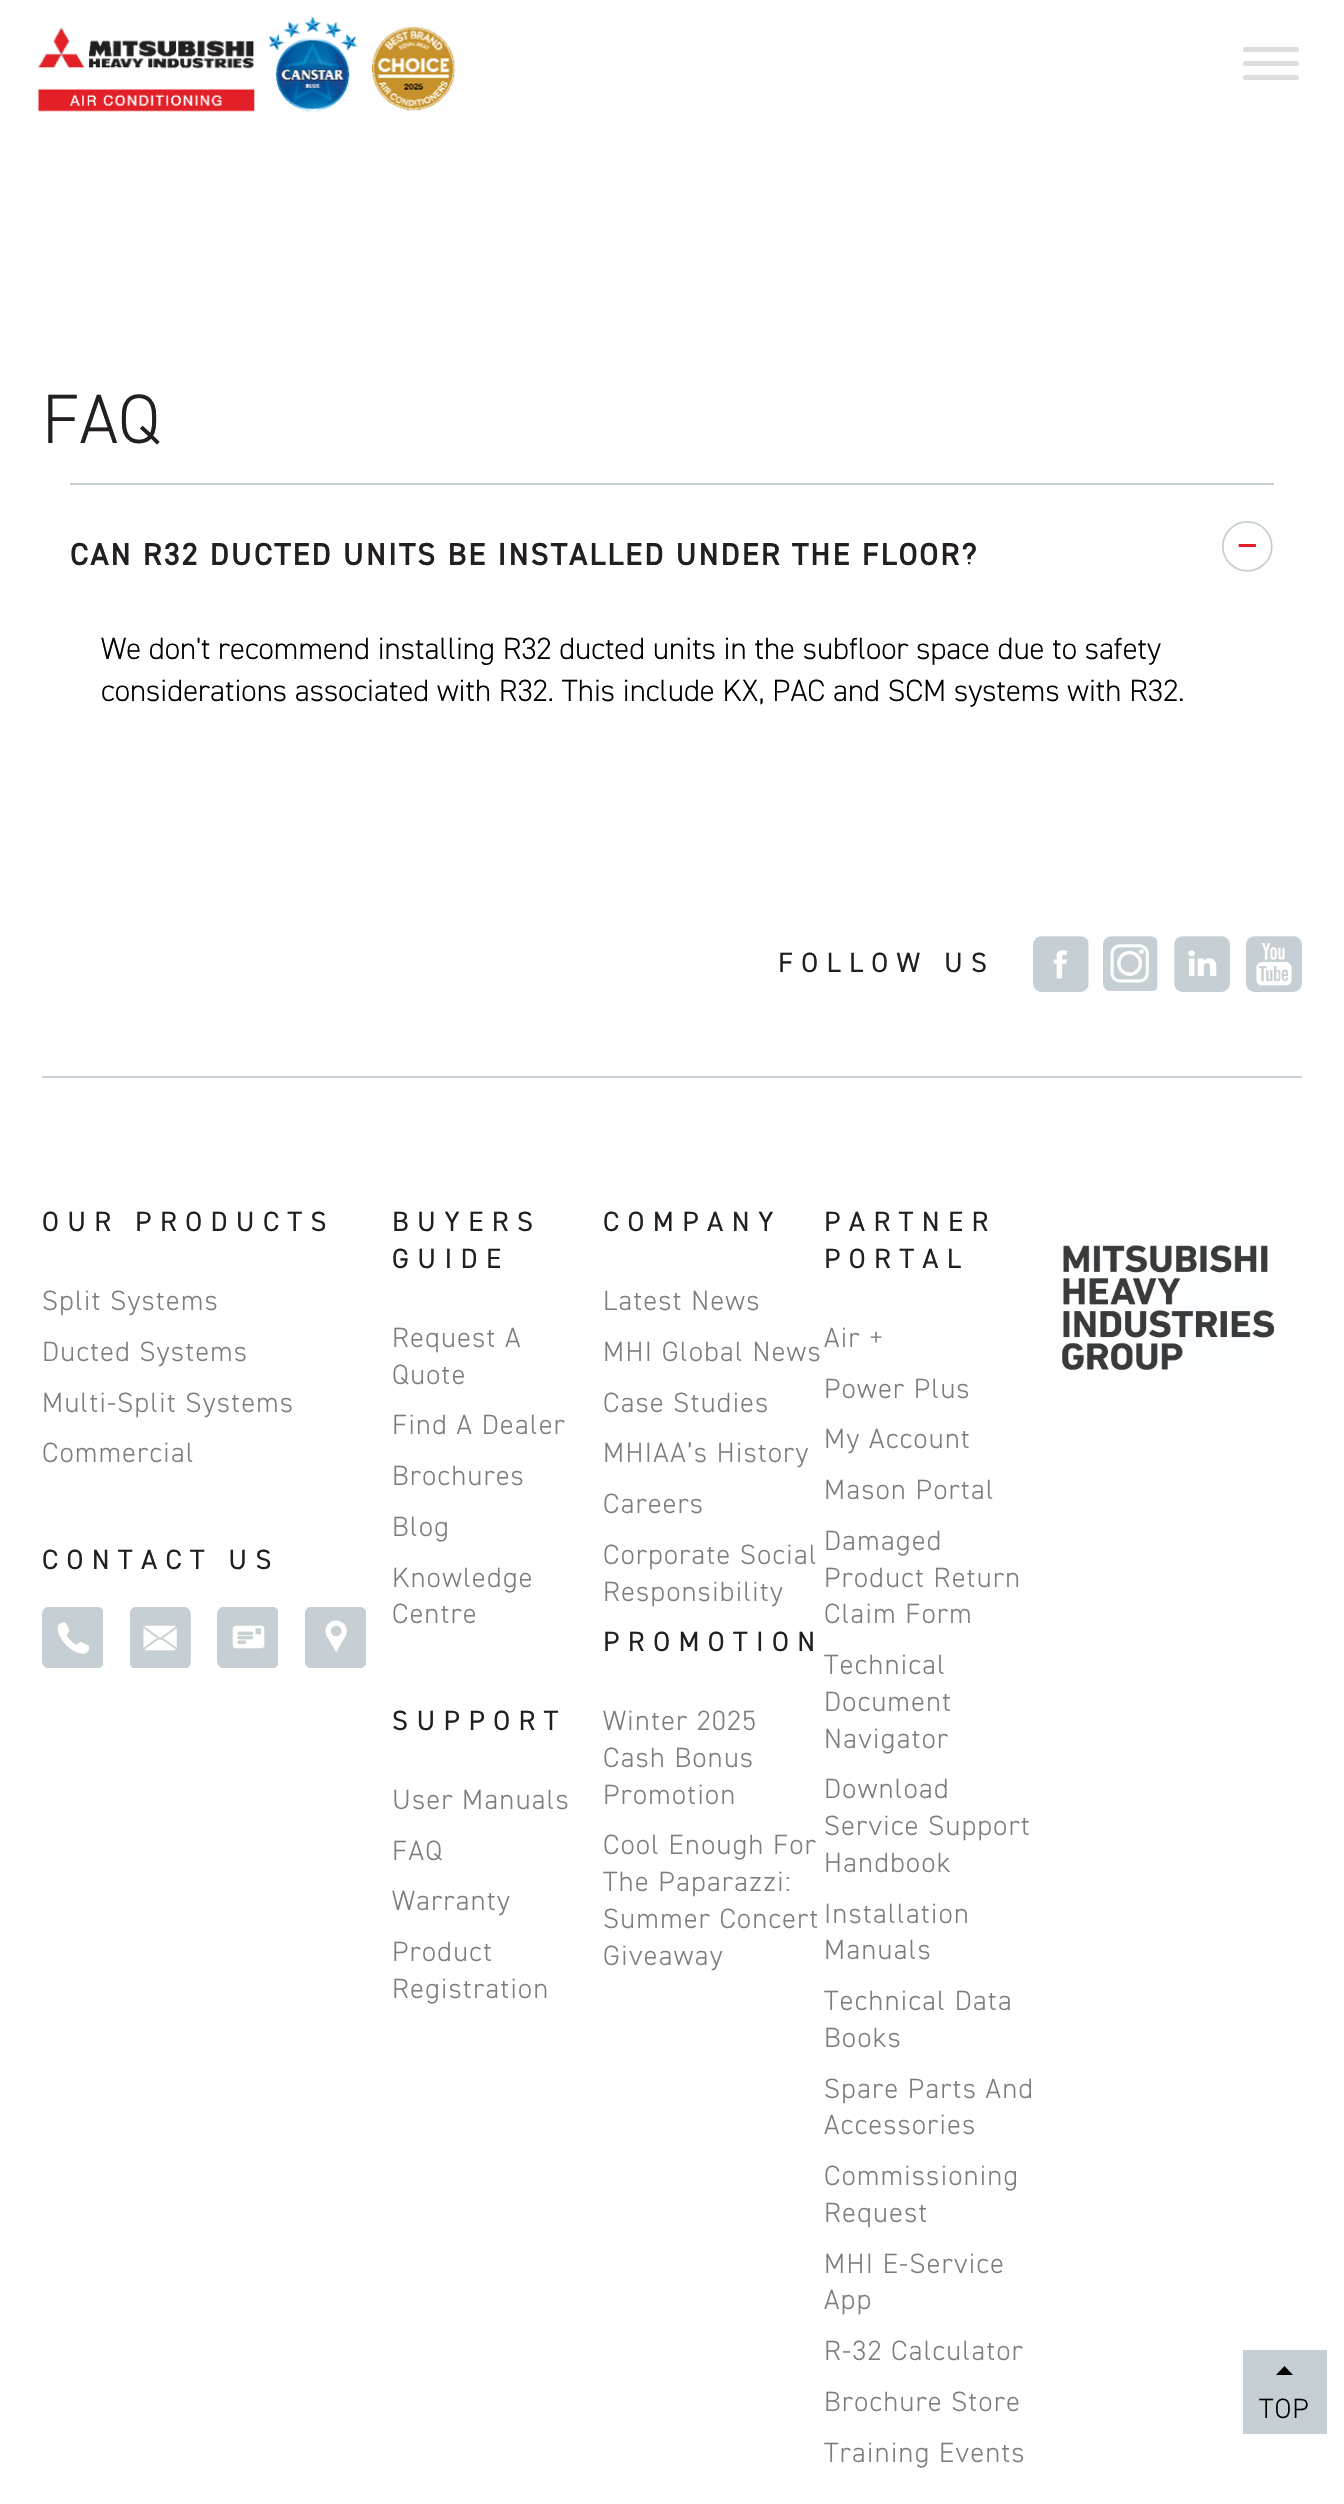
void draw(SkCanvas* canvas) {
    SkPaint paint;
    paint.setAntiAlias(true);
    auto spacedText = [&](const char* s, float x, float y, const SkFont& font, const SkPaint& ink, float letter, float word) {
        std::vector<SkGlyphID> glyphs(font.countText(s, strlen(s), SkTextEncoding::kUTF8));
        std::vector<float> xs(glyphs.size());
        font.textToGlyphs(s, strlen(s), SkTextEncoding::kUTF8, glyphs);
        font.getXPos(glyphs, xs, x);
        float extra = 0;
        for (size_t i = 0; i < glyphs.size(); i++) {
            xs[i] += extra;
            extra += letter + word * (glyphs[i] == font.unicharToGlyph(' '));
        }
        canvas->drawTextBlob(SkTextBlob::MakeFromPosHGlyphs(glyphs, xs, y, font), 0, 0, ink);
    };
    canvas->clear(0xFFFFFFFF);
    canvas->drawImageRect(SkImages::DeferredFromEncodedData(SkData::MakeFromFileName("img1.png")), SkRect::MakeXYWH(38, 16, 418, 96), SkSamplingOptions());
    paint.setColor(0xFFDDDDDD);
    canvas->drawRoundRect(SkRect::MakeXYWH(1243, 47, 56, 5), 2.5f, 2.5f, paint);
    canvas->drawRoundRect(SkRect::MakeXYWH(1243, 61, 56, 5), 2.5f, 2.5f, paint);
    canvas->drawRoundRect(SkRect::MakeXYWH(1243, 75, 56, 5), 2.5f, 2.5f, paint);
    SkFont font1(fontMgr->matchFamilyStyle("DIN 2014", SkFontStyle(300, SkFontStyle::kNormal_Width, SkFontStyle::kUpright_Slant)), 70);
    font1.setSubpixel(true);
    paint.setColor(0xFF231F20);
    canvas->drawString("FAQ", 42, 443, font1, paint);
    paint.setColor(0xFFC6D0D4);
    canvas->drawRect(SkRect::MakeXYWH(70, 483, 1204, 2), paint);
    SkFont font2(fontMgr->matchFamilyStyle("DIN 2014", SkFontStyle::Bold()), 30.8f);
    font2.setSubpixel(true);
    paint.setColor(0xFF231F20);
    spacedText("CAN R32 DUCTED UNITS BE INSTALLED UNDER THE FLOOR?", 70, 565, font2, paint, 2.45f, 0);
    canvas->drawImageRect(SkImages::DeferredFromEncodedData(SkData::MakeFromFileName("img2.png")), SkRect::MakeXYWH(1222, 521, 51, 51), SkSamplingOptions());
    SkFont font3(fontMgr->matchFamilyStyle("DIN 2014", SkFontStyle(300, SkFontStyle::kNormal_Width, SkFontStyle::kUpright_Slant)), 30.8f);
    font3.setSubpixel(true);
    paint.setColor(0xFF000000);
    canvas->drawString("We don't recommend installing R32 ducted units in the subfloor space due to safety", 101, 659, font3, paint);
    canvas->drawString("considerations associated with R32. This include KX, PAC and SCM systems with R32.", 101, 701, font3, paint);
    SkFont font4(fontMgr->matchFamilyStyle("DIN 2014", SkFontStyle::Normal()), 28);
    font4.setSubpixel(true);
    paint.setColor(0xFF231F20);
    spacedText("FOLLOW US", 778, 972, font4, paint, 8.4f, 0);
    canvas->drawImageRect(SkImages::DeferredFromEncodedData(SkData::MakeFromFileName("img3.png")), SkRect::MakeXYWH(1033, 936, 56, 56), SkSamplingOptions());
    canvas->drawImageRect(SkImages::DeferredFromEncodedData(SkData::MakeFromFileName("img4.png")), SkRect::MakeXYWH(1103, 936, 55, 55), SkSamplingOptions());
    canvas->drawImageRect(SkImages::DeferredFromEncodedData(SkData::MakeFromFileName("img5.png")), SkRect::MakeXYWH(1174, 936, 56, 56), SkSamplingOptions());
    canvas->drawImageRect(SkImages::DeferredFromEncodedData(SkData::MakeFromFileName("img6.png")), SkRect::MakeXYWH(1246, 936, 56, 56), SkSamplingOptions());
    paint.setColor(0xFFC6D0D4);
    canvas->drawRect(SkRect::MakeXYWH(42, 1076, 1260, 2), paint);
    paint.setColor(0xFF231F20);
    spacedText("OUR PRODUCTS", 42, 1231, font4, paint, 8.4f, 0);
    SkFont font5(fontMgr->matchFamilyStyle("DIN 2014", SkFontStyle(300, SkFontStyle::kNormal_Width, SkFontStyle::kUpright_Slant)), 28);
    font5.setSubpixel(true);
    paint.setColor(0xFF7C7D80);
    spacedText("Split Systems", 42, 1310, font5, paint, 1.4f, 0);
    spacedText("Ducted Systems", 42, 1361, font5, paint, 1.4f, 0);
    spacedText("Multi-Split Systems", 42, 1412, font5, paint, 1.4f, 0);
    spacedText("Commercial", 42, 1462, font5, paint, 1.4f, 0);
    paint.setColor(0xFF231F20);
    spacedText("CONTACT US", 42, 1569, font4, paint, 8.4f, 0);
    canvas->drawImageRect(SkImages::DeferredFromEncodedData(SkData::MakeFromFileName("img7.png")), SkRect::MakeXYWH(42, 1607, 61, 61), SkSamplingOptions());
    canvas->drawImageRect(SkImages::DeferredFromEncodedData(SkData::MakeFromFileName("img8.png")), SkRect::MakeXYWH(130, 1607, 61, 61), SkSamplingOptions());
    canvas->drawImageRect(SkImages::DeferredFromEncodedData(SkData::MakeFromFileName("img9.png")), SkRect::MakeXYWH(217, 1607, 61, 61), SkSamplingOptions());
    canvas->drawImageRect(SkImages::DeferredFromEncodedData(SkData::MakeFromFileName("img10.png")), SkRect::MakeXYWH(305, 1607, 61, 61), SkSamplingOptions());
    spacedText("BUYERS", 392, 1231, font4, paint, 8.4f, 0);
    spacedText("GUIDE", 392, 1268, font4, paint, 8.4f, 0);
    paint.setColor(0xFF7C7D80);
    spacedText("Request A", 392, 1347, font5, paint, 1.4f, 0);
    spacedText("Quote", 392, 1384, font5, paint, 1.4f, 0);
    spacedText("Find A Dealer", 392, 1434, font5, paint, 1.4f, 0);
    spacedText("Brochures", 392, 1485, font5, paint, 1.4f, 0);
    spacedText("Blog", 392, 1536, font5, paint, 1.4f, 0);
    spacedText("Knowledge", 392, 1587, font5, paint, 1.4f, 0);
    spacedText("Centre", 392, 1623, font5, paint, 1.4f, 0);
    paint.setColor(0xFF231F20);
    spacedText("SUPPORT", 392, 1730, font4, paint, 8.4f, 0);
    paint.setColor(0xFF7C7D80);
    spacedText("User Manuals", 392, 1809, font5, paint, 1.4f, 0);
    spacedText("FAQ", 392, 1860, font5, paint, 1.4f, 0);
    spacedText("Warranty", 392, 1910, font5, paint, 1.4f, 0);
    spacedText("Product", 392, 1961, font5, paint, 1.4f, 0);
    spacedText("Registration", 392, 1998, font5, paint, 1.4f, 0);
    paint.setColor(0xFF231F20);
    spacedText("COMPANY", 603, 1231, font4, paint, 8.4f, 0);
    paint.setColor(0xFF7C7D80);
    spacedText("Latest News", 603, 1310, font5, paint, 1.4f, 0);
    spacedText("MHI Global News", 603, 1361, font5, paint, 1.4f, 0);
    spacedText("Case Studies", 603, 1412, font5, paint, 1.4f, 0);
    spacedText("MHIAA’s History", 603, 1462, font5, paint, 1.4f, 0);
    spacedText("Careers", 603, 1513, font5, paint, 1.4f, 0);
    spacedText("Corporate Social", 603, 1564, font5, paint, 1.4f, 0);
    spacedText("Responsibility", 603, 1601, font5, paint, 1.4f, 0);
    paint.setColor(0xFF231F20);
    spacedText("PROMOTION", 603, 1651, font4, paint, 8.4f, 0);
    paint.setColor(0xFF7C7D80);
    spacedText("Winter 2025", 603, 1730, font5, paint, 1.4f, 0);
    spacedText("Cash Bonus", 603, 1767, font5, paint, 1.4f, 0);
    spacedText("Promotion", 603, 1804, font5, paint, 1.4f, 0);
    spacedText("Cool Enough For", 603, 1854, font5, paint, 1.4f, 0);
    spacedText("The Paparazzi:", 603, 1891, font5, paint, 1.4f, 0);
    spacedText("Summer Concert", 603, 1928, font5, paint, 1.4f, 0);
    spacedText("Giveaway", 603, 1965, font5, paint, 1.4f, 0);
    paint.setColor(0xFF231F20);
    spacedText("PARTNER", 824, 1231, font4, paint, 8.4f, 0);
    spacedText("PORTAL", 824, 1268, font4, paint, 8.4f, 0);
    paint.setColor(0xFF7C7D80);
    spacedText("Air +", 824, 1347, font5, paint, 1.4f, 0);
    spacedText("Power Plus", 824, 1398, font5, paint, 1.4f, 0);
    spacedText("My Account", 824, 1448, font5, paint, 1.4f, 0);
    spacedText("Mason Portal", 824, 1499, font5, paint, 1.4f, 0);
    spacedText("Damaged", 824, 1550, font5, paint, 1.4f, 0);
    spacedText("Product Return", 824, 1587, font5, paint, 1.4f, 0);
    spacedText("Claim Form", 824, 1623, font5, paint, 1.4f, 0);
    spacedText("Technical", 824, 1674, font5, paint, 1.4f, 0);
    spacedText("Document", 824, 1711, font5, paint, 1.4f, 0);
    spacedText("Navigator", 824, 1748, font5, paint, 1.4f, 0);
    spacedText("Download", 824, 1798, font5, paint, 1.4f, 0);
    spacedText("Service Support", 824, 1835, font5, paint, 1.4f, 0);
    spacedText("Handbook", 824, 1872, font5, paint, 1.4f, 0);
    spacedText("Installation", 824, 1923, font5, paint, 1.4f, 0);
    spacedText("Manuals", 824, 1959, font5, paint, 1.4f, 0);
    spacedText("Technical Data", 824, 2010, font5, paint, 1.4f, 0);
    spacedText("Books", 824, 2047, font5, paint, 1.4f, 0);
    spacedText("Spare Parts And", 824, 2098, font5, paint, 1.4f, 0);
    spacedText("Accessories", 824, 2134, font5, paint, 1.4f, 0);
    spacedText("Commissioning", 824, 2185, font5, paint, 1.4f, 0);
    spacedText("Request", 824, 2222, font5, paint, 1.4f, 0);
    spacedText("MHI E-Service", 824, 2273, font5, paint, 1.4f, 0);
    spacedText("App", 824, 2309, font5, paint, 1.4f, 0);
    spacedText("R-32 Calculator", 824, 2360, font5, paint, 1.4f, 0);
    spacedText("Brochure Store", 824, 2411, font5, paint, 1.4f, 0);
    spacedText("Training Events", 824, 2462, font5, paint, 1.4f, 0);
    canvas->drawImageRect(SkImages::DeferredFromEncodedData(SkData::MakeFromFileName("img11.png")), SkRect::MakeXYWH(1062, 1245, 212, 125), SkSamplingOptions());
    paint.setColor(0xFFC6D0D4);
    canvas->drawRect(SkRect::MakeXYWH(1243, 2350, 84, 84), paint);
    paint.setColor(0xFF000000);
    canvas->drawPath(SkPathBuilder().moveTo(1293, 2375).lineTo(1276, 2375).lineTo(1284.5f, 2366).close().detach(), paint);
    spacedText("TOP", 1259, 2418, font5, paint, 1, 0);
}
